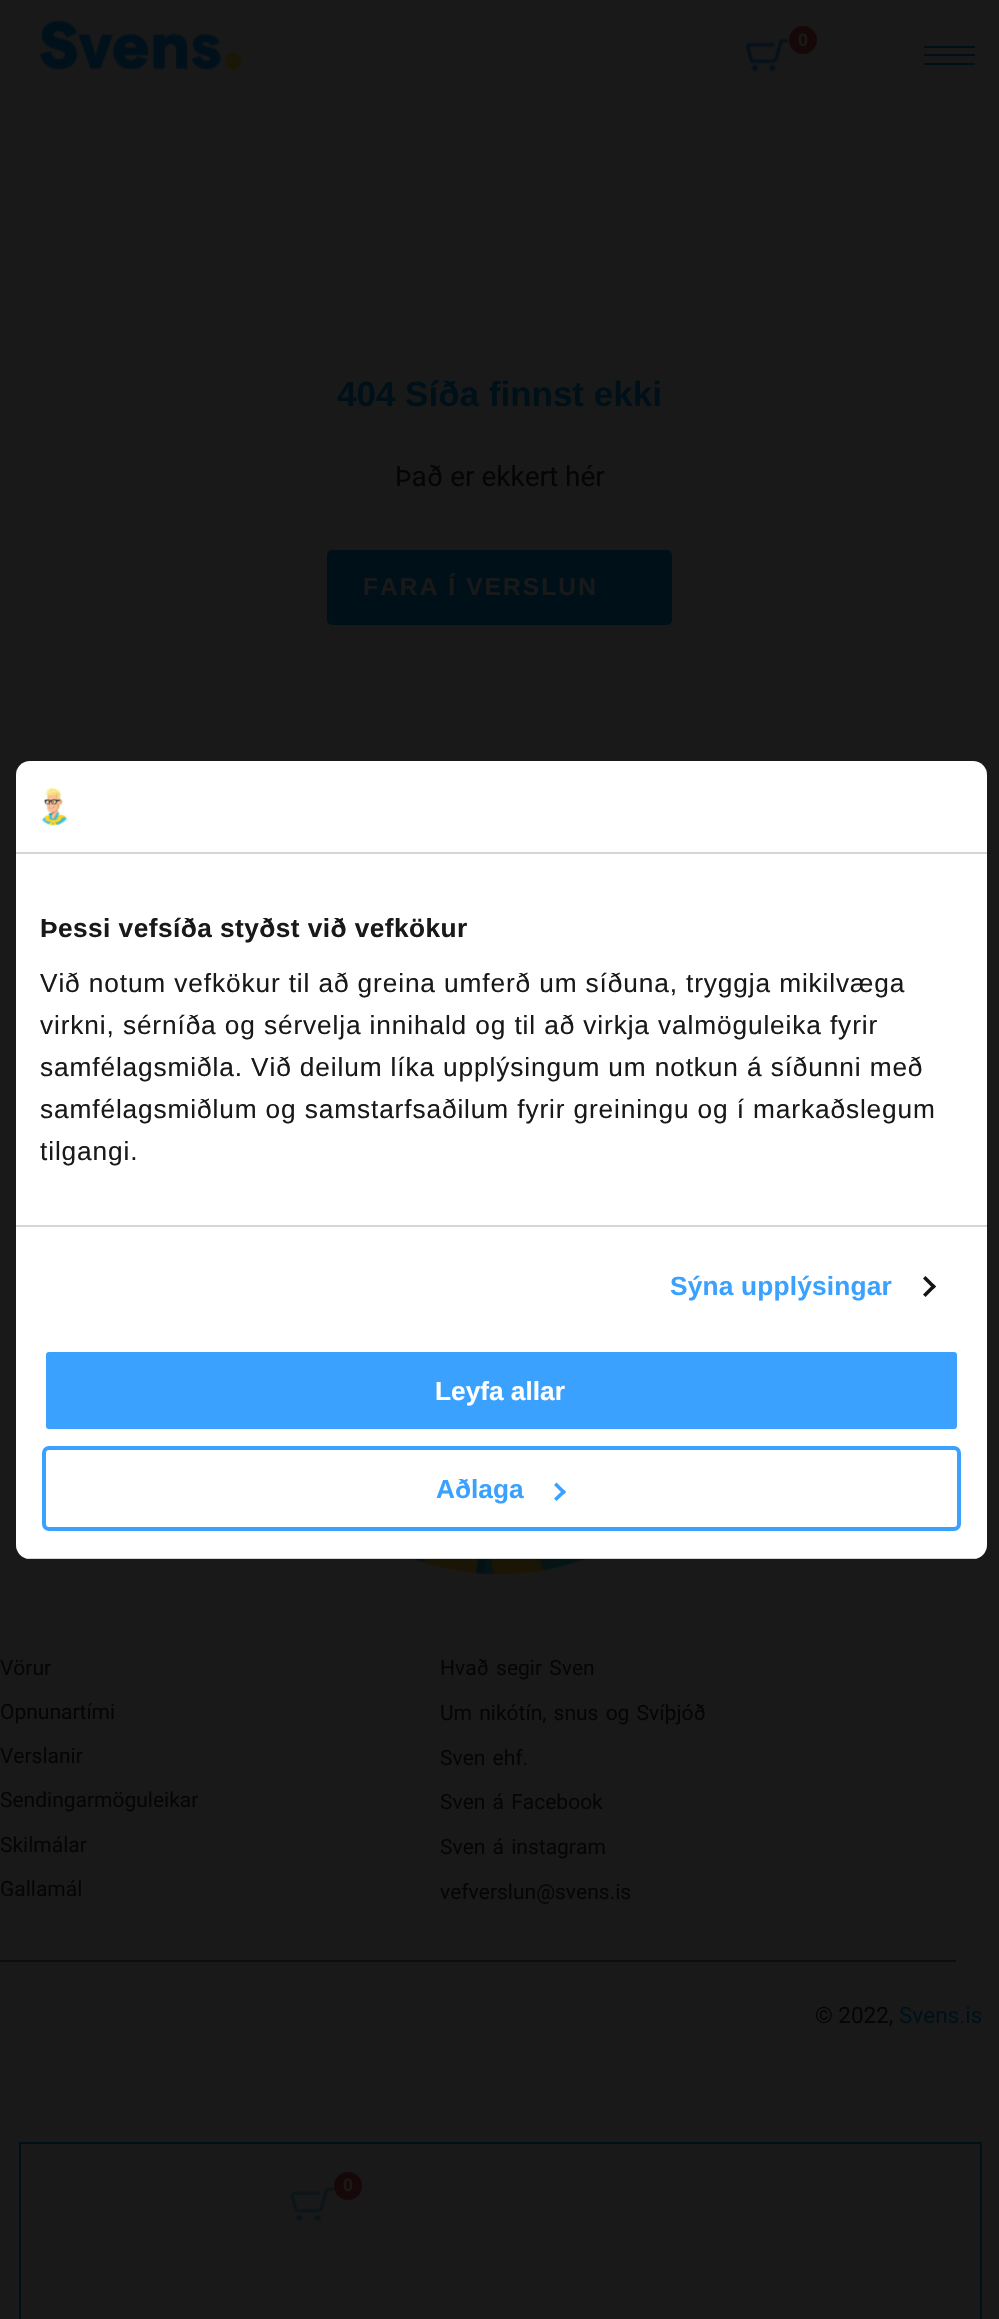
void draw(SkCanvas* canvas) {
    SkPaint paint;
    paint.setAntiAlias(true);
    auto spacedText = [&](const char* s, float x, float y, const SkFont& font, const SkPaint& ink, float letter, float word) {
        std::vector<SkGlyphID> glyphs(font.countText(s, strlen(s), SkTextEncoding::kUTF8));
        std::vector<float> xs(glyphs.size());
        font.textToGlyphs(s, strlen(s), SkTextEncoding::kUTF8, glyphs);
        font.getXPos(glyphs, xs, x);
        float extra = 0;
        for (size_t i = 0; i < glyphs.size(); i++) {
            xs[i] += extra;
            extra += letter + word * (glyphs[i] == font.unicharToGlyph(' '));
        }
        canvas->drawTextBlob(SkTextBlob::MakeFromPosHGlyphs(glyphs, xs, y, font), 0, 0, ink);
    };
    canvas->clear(0xFF191919);
    canvas->drawImageRect(SkImages::DeferredFromEncodedData(SkData::MakeFromFileName("img1.png")), SkRect::MakeXYWH(39, 20, 204, 50), SkSamplingOptions());
    canvas->drawImageRect(SkImages::DeferredFromEncodedData(SkData::MakeFromFileName("img2.png")), SkRect::MakeXYWH(745, 38, 45, 35), SkSamplingOptions());
    paint.setColor(0xFF160808);
    canvas->drawCircle(803, 40, 14, paint);
    SkFont font1(fontMgr->matchFamilyStyle("Liberation Sans", SkFontStyle::Bold()), 18);
    font1.setSubpixel(true);
    paint.setColor(0xFF191919);
    canvas->drawString("0", 798, 46, font1, paint);
    paint.setColor(0xFF001019);
    canvas->drawRect(SkRect::MakeXYWH(924, 46, 51, 2), paint);
    canvas->drawRect(SkRect::MakeXYWH(924, 54, 51, 2), paint);
    canvas->drawRect(SkRect::MakeXYWH(924, 63, 51, 2), paint);
    SkFont font2(fontMgr->matchFamilyStyle("Liberation Sans", SkFontStyle::Bold()), 35);
    font2.setSubpixel(true);
    canvas->drawString("404 Síða finnst ekki", 337, 406, font2, paint);
    SkFont font3(fontMgr->matchFamilyStyle("Roboto", SkFontStyle::Normal()), 28);
    font3.setSubpixel(true);
    paint.setColor(0xFF050505);
    canvas->drawString("Það er ekkert hér", 395, 486, font3, paint);
    paint.setColor(0xFF001019);
    canvas->drawRoundRect(SkRect::MakeXYWH(327, 550, 345, 75), 5, 5, paint);
    SkFont font4(fontMgr->matchFamilyStyle("Liberation Sans", SkFontStyle::Bold()), 24.5f);
    font4.setSubpixel(true);
    paint.setColor(0xFF191919);
    spacedText("FARA Í VERSLUN", 363, 595, font4, paint, 2.1f, 0);
    canvas->drawImageRect(SkImages::DeferredFromEncodedData(SkData::MakeFromFileName("img3.png")), SkRect::MakeXYWH(411, 1559, 177, 17), SkSamplingOptions());
    SkFont font5(fontMgr->matchFamilyStyle("Roboto", SkFontStyle::Normal()), 21);
    font5.setSubpixel(true);
    paint.setColor(0xFF050505);
    canvas->drawString("Vörur", 0, 1675, font5, paint);
    canvas->drawString("Opnunartími", 0, 1719, font5, paint);
    canvas->drawString("Verslanir", 0, 1763, font5, paint);
    canvas->drawString("Sendingarmöguleikar", 0, 1807, font5, paint);
    canvas->drawString("Skilmálar", 0, 1852, font5, paint);
    canvas->drawString("Gallamál", 0, 1896, font5, paint);
    spacedText("Hvað segir Sven", 440, 1675, font5, paint, 0, 2);
    spacedText("Um nikótín, snus og Svíþjóð", 440, 1720, font5, paint, 0, 2);
    spacedText("Sven ehf.", 440, 1765, font5, paint, 0, 2);
    spacedText("Sven á Facebook", 440, 1809, font5, paint, 0, 2);
    spacedText("Sven á instagram", 440, 1854, font5, paint, 0, 2);
    canvas->drawString("vefverslun@svens.is", 440, 1899, font5, paint);
    paint.setColor(0xFF0D0E0E);
    canvas->drawRect(SkRect::MakeXYWH(0, 1960, 956, 2), paint);
    SkFont font6(fontMgr->matchFamilyStyle("Roboto", SkFontStyle::Normal()), 22.5f);
    font6.setSubpixel(true);
    paint.setColor(0xFF050505);
    canvas->drawString("© 2022,", 815, 2023, font6, paint);
    paint.setColor(0xFF001019);
    canvas->drawString("Svens.is", 899, 2023, font6, paint);
    paint.setStyle(SkPaint::kStroke_Style);
    paint.setStrokeWidth(2);
    canvas->drawRect(SkRect::MakeXYWH(20, 2143, 961, 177), paint);
    canvas->drawImageRect(SkImages::DeferredFromEncodedData(SkData::MakeFromFileName("img4.png")), SkRect::MakeXYWH(290, 2187, 45, 34), SkSamplingOptions());
    paint.setStyle(SkPaint::kFill_Style);
    paint.setColor(0xFF160808);
    canvas->drawCircle(348, 2186, 14, paint);
    paint.setColor(0xFF191919);
    canvas->drawString("0", 343, 2191, font1, paint);
    paint.setColor(0xFFFFFFFF);
    canvas->drawRoundRect(SkRect::MakeXYWH(16, 761, 971, 798), 14, 14, paint);
    paint.setColor(0xFFD6D6D6);
    canvas->drawRect(SkRect::MakeXYWH(16, 852, 971, 2), paint);
    canvas->drawImageRect(SkImages::DeferredFromEncodedData(SkData::MakeFromFileName("img5.png")), SkRect::MakeXYWH(42, 787, 26, 39), SkSamplingOptions());
    canvas->drawRect(SkRect::MakeXYWH(16, 1225, 971, 2), paint);
    SkFont font7(fontMgr->matchFamilyStyle("Liberation Sans", SkFontStyle::Bold()), 26.25f);
    font7.setSubpixel(true);
    paint.setColor(0xFF191919);
    spacedText("Þessi vefsíða styðst við vefkökur", 40, 937, font7, paint, 0.45f, 0);
    SkFont font8(fontMgr->matchFamilyStyle("Liberation Sans", SkFontStyle::Normal()), 26.25f);
    font8.setSubpixel(true);
    spacedText("Við notum vefkökur til að greina umferð um síðuna, tryggja mikilvæga", 40, 992, font8, paint, 0.88f, 0);
    spacedText("virkni, sérníða og sérvelja innihald og til að virkja valmöguleika fyrir", 40, 1034, font8, paint, 0.88f, 0);
    spacedText("samfélagsmiðla. Við deilum líka upplýsingum um notkun á síðunni með", 40, 1076, font8, paint, 0.88f, 0);
    spacedText("samfélagsmiðlum og samstarfsaðilum fyrir greiningu og í markaðslegum", 40, 1118, font8, paint, 0.88f, 0);
    spacedText("tilgangi.", 40, 1160, font8, paint, 0.88f, 0);
    paint.setColor(0xFF3AA1FF);
    spacedText("Sýna upplýsingar", 670, 1295, font7, paint, 0.2f, 0);
    paint.setColor(0xFF141414);
    canvas->drawPath(SkPathBuilder().moveTo(925.5f, 1276).lineTo(936, 1286.5f).lineTo(933.5f, 1289).lineTo(923, 1278.5f).close().detach(), paint);
    canvas->drawPath(SkPathBuilder().moveTo(933.5f, 1284).lineTo(936, 1286.5f).lineTo(925.5f, 1297).lineTo(923, 1294.5f).close().detach(), paint);
    canvas->save();
    canvas->clipPath(SkPathBuilder().moveTo(30, 761).lineTo(973, 761).cubicTo(980.5f, 761, 987, 767.5f, 987, 775).lineTo(987, 1545).cubicTo(987, 1552.5f, 980.5f, 1559, 973, 1559).lineTo(30, 1559).cubicTo(22.5f, 1559, 16, 1552.5f, 16, 1545).lineTo(16, 775).cubicTo(16, 767.5f, 22.5f, 761, 30, 761).close().detach(), true);
    paint.setColor(0xFFD6D6D6);
    canvas->drawRect(SkRect::MakeXYWH(25, 1558, 953, 1), paint);
    canvas->restore();
    paint.setColor(0xFF3AA1FF);
    canvas->drawRoundRect(SkRect::MakeXYWH(44, 1350, 915, 81), 5, 5, paint);
    paint.setStyle(SkPaint::kStroke_Style);
    paint.setStrokeWidth(4);
    paint.setColor(0xFFFFFFFF);
    canvas->drawRoundRect(SkRect::MakeXYWH(44, 1350, 915, 81), 5, 5, paint);
    paint.setStyle(SkPaint::kFill_Style);
    canvas->drawString("Leyfa allar", 435, 1400, font7, paint);
    paint.setStyle(SkPaint::kStroke_Style);
    paint.setColor(0xFF3AA1FF);
    canvas->drawRoundRect(SkRect::MakeXYWH(44, 1448, 915, 81), 5, 5, paint);
    paint.setStyle(SkPaint::kFill_Style);
    canvas->drawString("Aðlaga", 436, 1498, font7, paint);
    canvas->drawPath(SkPathBuilder().moveTo(556.5f, 1482.5f).lineTo(566, 1492).lineTo(563.5f, 1494.5f).lineTo(554, 1485).close().detach(), paint);
    canvas->drawPath(SkPathBuilder().moveTo(563.5f, 1489.5f).lineTo(566, 1492).lineTo(556.5f, 1501).lineTo(554, 1498.5f).close().detach(), paint);
}
